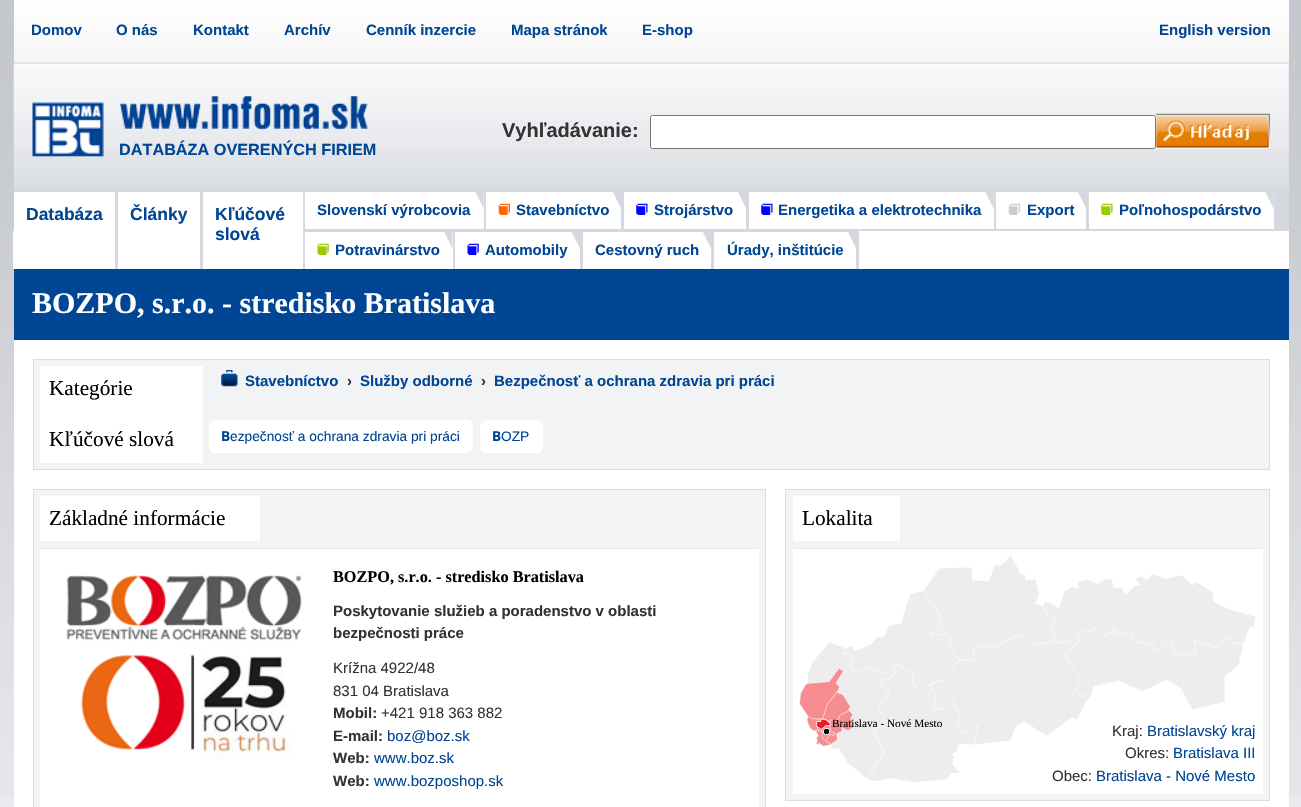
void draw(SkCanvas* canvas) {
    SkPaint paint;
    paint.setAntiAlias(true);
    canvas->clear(0xFFEAEBEE);
    canvas->drawImageRect(SkImages::DeferredFromEncodedData(SkData::MakeFromFileName("img1.png")), SkRect::MakeXYWH(0, 0, 1301, 797), SkSamplingOptions());
    {
        const SkColor colors[] = {0xFFFFFFFF, 0xFFF5F5F5};
        const float stops[] = {0, 1};
        const SkPoint ends[] = {{651, 0}, {651, 63}};
        paint.setShader(SkGradientShader::MakeLinear(ends, colors, stops, 2, SkTileMode::kClamp));
        paint.setAlpha(255);
    }
    canvas->drawRect(SkRect::MakeXYWH(14, 0, 1275, 63), paint);
    SkFont font1(fontMgr->matchFamilyStyle("Liberation Sans", SkFontStyle::Bold()), 15);
    font1.setSubpixel(true);
    paint.setShader(nullptr);
    paint.setColor(0xFF004694);
    canvas->drawString("Domov", 31, 35, font1, paint);
    canvas->drawString("O nás", 116, 35, font1, paint);
    canvas->drawString("Kontakt", 193, 35, font1, paint);
    canvas->drawString("Archív", 284, 35, font1, paint);
    canvas->drawString("Cenník inzercie", 366, 35, font1, paint);
    canvas->drawString("Mapa stránok", 511, 35, font1, paint);
    canvas->drawString("E-shop", 642, 35, font1, paint);
    canvas->drawString("English version", 1159, 35, font1, paint);
    paint.setColor(0xFFD5D8DE);
    canvas->drawRect(SkRect::MakeXYWH(14, 63, 1275, 126), paint);
    canvas->drawImageRect(SkImages::DeferredFromEncodedData(SkData::MakeFromFileName("img2.png")), SkRect::MakeXYWH(13, 62, 1276, 126), SkSamplingOptions());
    SkFont font2(fontMgr->matchFamilyStyle("Liberation Sans", SkFontStyle::Bold()), 20);
    font2.setSubpixel(true);
    paint.setColor(0xFF333333);
    canvas->drawString("Vyhľadávanie:", 502, 137, font2, paint);
    canvas->drawImageRect(SkImages::DeferredFromEncodedData(SkData::MakeFromFileName("img3.png")), SkRect::MakeXYWH(32, 96, 336, 61), SkSamplingOptions());
    SkFont font3(fontMgr->matchFamilyStyle("Liberation Sans", SkFontStyle::Bold()), 16.25f);
    font3.setSubpixel(true);
    paint.setColor(0xFF004694);
    canvas->drawString("DATABÁZA OVERENÝCH FIRIEM", 119, 155, font3, paint);
    paint.setColor(0xFFFFFFFF);
    canvas->drawRoundRect(SkRect::MakeXYWH(650.5f, 115.5f, 505, 33), 2, 2, paint);
    paint.setStyle(SkPaint::kStroke_Style);
    paint.setStrokeWidth(1);
    paint.setColor(0xFF767676);
    canvas->drawRoundRect(SkRect::MakeXYWH(650.5f, 115.5f, 505, 33), 2, 2, paint);
    canvas->drawImageRect(SkImages::DeferredFromEncodedData(SkData::MakeFromFileName("img4.png")), SkRect::MakeXYWH(1156, 113, 114, 36), SkSamplingOptions());
    paint.setStyle(SkPaint::kFill_Style);
    paint.setColor(0xFFD5D8DE);
    canvas->drawRect(SkRect::MakeXYWH(859, 189, 430, 42), paint);
    paint.setColor(0xFFFFFFFF);
    canvas->drawRect(SkRect::MakeXYWH(13, 231, 1276, 38), paint);
    canvas->drawRect(SkRect::MakeXYWH(14, 192, 101, 39), paint);
    paint.setColor(0xFFD5D8DE);
    canvas->drawRect(SkRect::MakeXYWH(14, 189, 845, 3), paint);
    canvas->drawRect(SkRect::MakeXYWH(115, 189, 3, 80), paint);
    SkFont font4(fontMgr->matchFamilyStyle("Liberation Sans", SkFontStyle::Bold()), 17.5f);
    font4.setSubpixel(true);
    paint.setColor(0xFF004694);
    canvas->drawString("Databáza", 26, 220, font4, paint);
    paint.setColor(0xFFFFFFFF);
    canvas->drawRect(SkRect::MakeXYWH(118, 192, 82, 39), paint);
    paint.setColor(0xFFD5D8DE);
    canvas->drawRect(SkRect::MakeXYWH(200, 189, 3, 80), paint);
    paint.setColor(0xFF004694);
    canvas->drawString("Články", 130, 220, font4, paint);
    paint.setColor(0xFFFFFFFF);
    canvas->drawRect(SkRect::MakeXYWH(203, 192, 100, 39), paint);
    paint.setColor(0xFFD5D8DE);
    canvas->drawRect(SkRect::MakeXYWH(303, 189, 2, 80), paint);
    paint.setColor(0xFF004694);
    canvas->drawString("Kľúčové", 215, 220, font4, paint);
    canvas->drawString("slová", 215, 240, font4, paint);
    paint.setColor(0xFFFFFFFF);
    canvas->drawRect(SkRect::MakeXYWH(305, 192, 179, 37), paint);
    canvas->drawImageRect(SkImages::DeferredFromEncodedData(SkData::MakeFromFileName("img5.png")), SkRect::MakeXYWH(475, 192, 9, 16), SkSamplingOptions());
    paint.setColor(0xFFD5D8DE);
    canvas->drawRect(SkRect::MakeXYWH(484, 189, 2, 40), paint);
    paint.setColor(0xFF004694);
    canvas->drawString("Slovenskí výrobcovia", 317, 215, font1, paint);
    paint.setColor(0xFFFFFFFF);
    canvas->drawRect(SkRect::MakeXYWH(486, 192, 135, 37), paint);
    canvas->drawImageRect(SkImages::DeferredFromEncodedData(SkData::MakeFromFileName("img6.png")), SkRect::MakeXYWH(612, 192, 9, 16), SkSamplingOptions());
    paint.setColor(0xFFD5D8DE);
    canvas->drawRect(SkRect::MakeXYWH(621, 189, 3, 40), paint);
    canvas->drawImageRect(SkImages::DeferredFromEncodedData(SkData::MakeFromFileName("img7.png")), SkRect::MakeXYWH(498, 203, 12, 12), SkSamplingOptions());
    paint.setColor(0xFF004694);
    canvas->drawString("Stavebníctvo", 516, 215, font1, paint);
    paint.setColor(0xFFFFFFFF);
    canvas->drawRect(SkRect::MakeXYWH(624, 192, 122, 37), paint);
    canvas->drawImageRect(SkImages::DeferredFromEncodedData(SkData::MakeFromFileName("img6.png")), SkRect::MakeXYWH(737, 192, 9, 16), SkSamplingOptions());
    paint.setColor(0xFFD5D8DE);
    canvas->drawRect(SkRect::MakeXYWH(746, 189, 3, 40), paint);
    canvas->drawImageRect(SkImages::DeferredFromEncodedData(SkData::MakeFromFileName("img8.png")), SkRect::MakeXYWH(636, 203, 12, 12), SkSamplingOptions());
    paint.setColor(0xFF004694);
    canvas->drawString("Strojárstvo", 654, 215, font1, paint);
    paint.setColor(0xFFFFFFFF);
    canvas->drawRect(SkRect::MakeXYWH(749, 192, 245, 37), paint);
    canvas->drawImageRect(SkImages::DeferredFromEncodedData(SkData::MakeFromFileName("img5.png")), SkRect::MakeXYWH(985, 192, 9, 16), SkSamplingOptions());
    canvas->drawImageRect(SkImages::DeferredFromEncodedData(SkData::MakeFromFileName("img8.png")), SkRect::MakeXYWH(761, 203, 12, 12), SkSamplingOptions());
    paint.setColor(0xFF004694);
    canvas->drawString("Energetika a elektrotechnika", 778, 215, font1, paint);
    paint.setColor(0xFFFFFFFF);
    canvas->drawRect(SkRect::MakeXYWH(996, 192, 90, 37), paint);
    canvas->drawImageRect(SkImages::DeferredFromEncodedData(SkData::MakeFromFileName("img9.png")), SkRect::MakeXYWH(1077, 192, 9, 16), SkSamplingOptions());
    canvas->drawImageRect(SkImages::DeferredFromEncodedData(SkData::MakeFromFileName("img10.png")), SkRect::MakeXYWH(1008, 203, 12, 12), SkSamplingOptions());
    paint.setColor(0xFF004694);
    canvas->drawString("Export", 1027, 215, font1, paint);
    paint.setColor(0xFFFFFFFF);
    canvas->drawRect(SkRect::MakeXYWH(1089, 192, 185, 37), paint);
    canvas->drawImageRect(SkImages::DeferredFromEncodedData(SkData::MakeFromFileName("img11.png")), SkRect::MakeXYWH(1265, 192, 9, 16), SkSamplingOptions());
    canvas->drawImageRect(SkImages::DeferredFromEncodedData(SkData::MakeFromFileName("img12.png")), SkRect::MakeXYWH(1101, 203, 12, 12), SkSamplingOptions());
    paint.setColor(0xFF004694);
    canvas->drawString("Poľnohospodárstvo", 1119, 215, font1, paint);
    canvas->drawImageRect(SkImages::DeferredFromEncodedData(SkData::MakeFromFileName("img13.png")), SkRect::MakeXYWH(443, 232, 10, 16), SkSamplingOptions());
    paint.setColor(0xFFD5D8DE);
    canvas->drawRect(SkRect::MakeXYWH(305, 229, 554, 3), paint);
    canvas->drawRect(SkRect::MakeXYWH(453, 229, 2, 40), paint);
    canvas->drawImageRect(SkImages::DeferredFromEncodedData(SkData::MakeFromFileName("img14.png")), SkRect::MakeXYWH(317, 243, 12, 12), SkSamplingOptions());
    paint.setColor(0xFF004694);
    canvas->drawString("Potravinárstvo", 335, 255, font1, paint);
    canvas->drawImageRect(SkImages::DeferredFromEncodedData(SkData::MakeFromFileName("img15.png")), SkRect::MakeXYWH(571, 232, 9, 16), SkSamplingOptions());
    paint.setColor(0xFFD5D8DE);
    canvas->drawRect(SkRect::MakeXYWH(580, 229, 3, 40), paint);
    canvas->drawImageRect(SkImages::DeferredFromEncodedData(SkData::MakeFromFileName("img16.png")), SkRect::MakeXYWH(467, 243, 12, 12), SkSamplingOptions());
    paint.setColor(0xFF004694);
    canvas->drawString("Automobily", 485, 255, font1, paint);
    canvas->drawImageRect(SkImages::DeferredFromEncodedData(SkData::MakeFromFileName("img6.png")), SkRect::MakeXYWH(702, 232, 9, 16), SkSamplingOptions());
    paint.setColor(0xFFD5D8DE);
    canvas->drawRect(SkRect::MakeXYWH(711, 229, 3, 40), paint);
    paint.setColor(0xFF004694);
    canvas->drawString("Cestovný ruch", 595, 255, font1, paint);
    canvas->drawImageRect(SkImages::DeferredFromEncodedData(SkData::MakeFromFileName("img6.png")), SkRect::MakeXYWH(847, 232, 9, 16), SkSamplingOptions());
    paint.setColor(0xFFD5D8DE);
    canvas->drawRect(SkRect::MakeXYWH(856, 229, 3, 40), paint);
    paint.setColor(0xFF004694);
    canvas->drawString("Úrady, inštitúcie", 727, 255, font1, paint);
    canvas->drawRect(SkRect::MakeXYWH(14, 269, 1275, 71), paint);
    SkFont font5(fontMgr->matchFamilyStyle("Liberation Serif", SkFontStyle::Bold()), 30);
    font5.setSubpixel(true);
    paint.setColor(0xFFFFFFFF);
    canvas->drawString("BOZPO, s.r.o. - stredisko Bratislava", 32, 313, font5, paint);
    canvas->drawRect(SkRect::MakeXYWH(14, 340, 1275, 467), paint);
    paint.setColor(0xFFF2F3F5);
    canvas->drawRect(SkRect::MakeXYWH(33.5f, 359.5f, 1236, 110), paint);
    paint.setStyle(SkPaint::kStroke_Style);
    paint.setColor(0xFFDBDCDE);
    canvas->drawRect(SkRect::MakeXYWH(33.5f, 359.5f, 1236, 110), paint);
    paint.setStyle(SkPaint::kFill_Style);
    paint.setColor(0xFFFFFFFF);
    canvas->drawRect(SkRect::MakeXYWH(40, 366, 163, 97), paint);
    SkFont font6(fontMgr->matchFamilyStyle("Liberation Serif", SkFontStyle::Normal()), 21.25f);
    font6.setSubpixel(true);
    paint.setColor(0xFF000000);
    canvas->drawString("Kategórie", 49, 395, font6, paint);
    canvas->drawImageRect(SkImages::DeferredFromEncodedData(SkData::MakeFromFileName("img17.png")), SkRect::MakeXYWH(221, 370, 17, 17), SkSamplingOptions());
    paint.setColor(0xFF004694);
    canvas->drawString("Stavebníctvo", 245, 386, font1, paint);
    paint.setColor(0xFF333333);
    canvas->drawString("›", 347, 386, font1, paint);
    paint.setColor(0xFF004694);
    canvas->drawString("Služby odborné", 360, 386, font1, paint);
    paint.setColor(0xFF333333);
    canvas->drawString("›", 481, 386, font1, paint);
    paint.setColor(0xFF004694);
    canvas->drawString("Bezpečnosť a ochrana zdravia pri práci", 494, 386, font1, paint);
    paint.setColor(0xFF000000);
    canvas->drawString("Kľúčové slová", 49, 446, font6, paint);
    paint.setColor(0xFFFFFFFF);
    canvas->drawRoundRect(SkRect::MakeXYWH(209, 420, 264, 33), 6, 6, paint);
    SkFont font7(fontMgr->matchFamilyStyle("Noto Sans", SkFontStyle::Bold()), 13.75f);
    font7.setSubpixel(true);
    paint.setColor(0xFF004694);
    canvas->drawString("B", 221, 441, font7, paint);
    SkFont font8(fontMgr->matchFamilyStyle("Liberation Sans", SkFontStyle::Normal()), 13.75f);
    font8.setSubpixel(true);
    canvas->drawString("ezpečnosť a ochrana zdravia pri práci", 230, 441, font8, paint);
    paint.setColor(0xFFFFFFFF);
    canvas->drawRoundRect(SkRect::MakeXYWH(480, 420, 63, 33), 6, 6, paint);
    paint.setColor(0xFF004694);
    canvas->drawString("B", 492, 441, font7, paint);
    canvas->drawString("OZP", 501, 441, font8, paint);
    paint.setColor(0xFFF2F3F5);
    canvas->drawRect(SkRect::MakeXYWH(33.5f, 489.5f, 732, 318), paint);
    paint.setStyle(SkPaint::kStroke_Style);
    paint.setColor(0xFFDBDCDE);
    canvas->drawRect(SkRect::MakeXYWH(33.5f, 489.5f, 732, 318), paint);
    paint.setStyle(SkPaint::kFill_Style);
    paint.setColor(0xFFFFFFFF);
    canvas->drawRect(SkRect::MakeXYWH(40, 496, 220, 45), paint);
    paint.setColor(0xFF000000);
    canvas->drawString("Základné informácie", 49, 525, font6, paint);
    paint.setColor(0xFFFFFFFF);
    canvas->drawRect(SkRect::MakeXYWH(40, 549, 719, 258), paint);
    paint.setColor(0xFFE9E9E9);
    canvas->drawRect(SkRect::MakeXYWH(40, 548, 719, 1), paint);
    canvas->drawImageRect(SkImages::DeferredFromEncodedData(SkData::MakeFromFileName("img18.png")), SkRect::MakeXYWH(66, 575, 236, 184), SkSamplingOptions());
    SkFont font9(fontMgr->matchFamilyStyle("Liberation Serif", SkFontStyle::Bold()), 16.25f);
    font9.setSubpixel(true);
    paint.setColor(0xFF000000);
    canvas->drawString("BOZPO, s.r.o. - stredisko Bratislava", 333, 582, font9, paint);
    paint.setColor(0xFF333333);
    canvas->drawString("Poskytovanie služieb a poradenstvo v oblasti", 333, 616, font1, paint);
    canvas->drawString("bezpečnosti práce", 333, 638, font1, paint);
    SkFont font10(fontMgr->matchFamilyStyle("Liberation Sans", SkFontStyle::Normal()), 15);
    font10.setSubpixel(true);
    canvas->drawString("Krížna 4922/48", 333, 673, font10, paint);
    canvas->drawString("831 04 Bratislava", 333, 696, font10, paint);
    canvas->drawString("Mobil:", 333, 718, font1, paint);
    canvas->drawString("+421 918 363 882", 381, 718, font10, paint);
    canvas->drawString("E-mail:", 333, 741, font1, paint);
    paint.setColor(0xFF004694);
    canvas->drawString("boz@boz.sk", 387, 741, font10, paint);
    paint.setColor(0xFF333333);
    canvas->drawString("Web:", 333, 763, font1, paint);
    paint.setColor(0xFF004694);
    canvas->drawString("www.boz.sk", 374, 763, font10, paint);
    paint.setColor(0xFF333333);
    canvas->drawString("Web:", 333, 786, font1, paint);
    paint.setColor(0xFF004694);
    canvas->drawString("www.bozposhop.sk", 374, 786, font10, paint);
    paint.setColor(0xFFF2F3F5);
    canvas->drawRect(SkRect::MakeXYWH(785.5f, 489.5f, 484, 311), paint);
    paint.setStyle(SkPaint::kStroke_Style);
    paint.setColor(0xFFDBDCDE);
    canvas->drawRect(SkRect::MakeXYWH(785.5f, 489.5f, 484, 311), paint);
    paint.setStyle(SkPaint::kFill_Style);
    paint.setColor(0xFFFFFFFF);
    canvas->drawRect(SkRect::MakeXYWH(793, 496, 107, 45), paint);
    paint.setColor(0xFF000000);
    canvas->drawString("Lokalita", 802, 525, font6, paint);
    paint.setColor(0xFFFFFFFF);
    canvas->drawRect(SkRect::MakeXYWH(793, 549, 470, 245), paint);
    paint.setColor(0xFFE9E9E9);
    canvas->drawRect(SkRect::MakeXYWH(793, 548, 470, 1), paint);
    canvas->drawImageRect(SkImages::DeferredFromEncodedData(SkData::MakeFromFileName("img19.png")), SkRect::MakeXYWH(799, 555, 457, 228), SkSamplingOptions());
    SkFont font11(fontMgr->matchFamilyStyle("Liberation Serif", SkFontStyle::Normal()), 11.25f);
    font11.setSubpixel(true);
    paint.setColor(0xFF000000);
    canvas->drawString("Bratislava - Nové Mesto", 832, 727, font11, paint);
    canvas->drawRoundRect(SkRect::MakeXYWH(823.5f, 728.5f, 6, 6), 2, 2, paint);
    paint.setStyle(SkPaint::kStroke_Style);
    paint.setColor(0xFFFFFFFF);
    canvas->drawRoundRect(SkRect::MakeXYWH(823.5f, 728.5f, 6, 6), 2, 2, paint);
    paint.setStyle(SkPaint::kFill_Style);
    paint.setColor(0xFF333333);
    canvas->drawString("Kraj:", 1112, 736, font10, paint);
    paint.setColor(0xFF004694);
    canvas->drawString("Bratislavský kraj", 1147, 736, font10, paint);
    paint.setColor(0xFF333333);
    canvas->drawString("Okres:", 1125, 758, font10, paint);
    paint.setColor(0xFF004694);
    canvas->drawString("Bratislava III", 1173, 758, font10, paint);
    paint.setColor(0xFF333333);
    canvas->drawString("Obec:", 1052, 781, font10, paint);
    paint.setColor(0xFF004694);
    canvas->drawString("Bratislava - Nové Mesto", 1096, 781, font10, paint);
}
